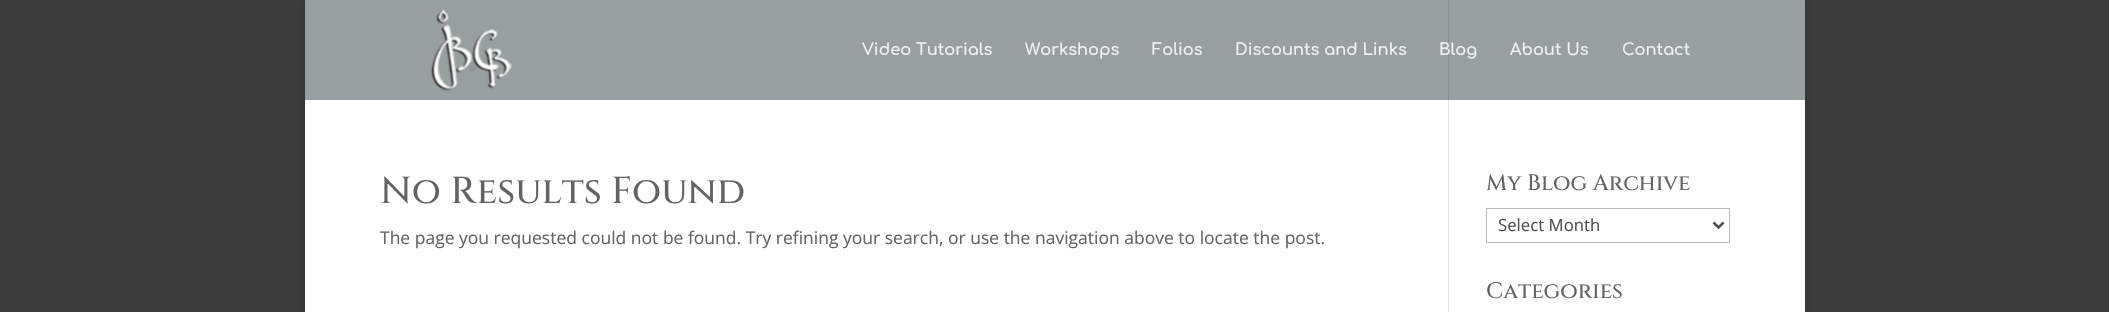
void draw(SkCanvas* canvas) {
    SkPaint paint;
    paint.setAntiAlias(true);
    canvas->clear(0xFF3D3D3D);
    paint.setColor(0x33000000);
    paint.setMaskFilter(SkMaskFilter::MakeBlur(kNormal_SkBlurStyle, 6));
    canvas->drawRect(SkRect::MakeXYWH(305, 0, 1500, 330), paint);
    paint.setMaskFilter(nullptr);
    paint.setColor(0xFF989FA0);
    canvas->drawRect(SkRect::MakeXYWH(305, 0, 1500, 100), paint);
    canvas->drawImageRect(SkImages::DeferredFromEncodedData(SkData::MakeFromFileName("img1.png")), SkRect::MakeXYWH(430, 9, 82, 82), SkSamplingOptions());
    SkFont font1(fontMgr->matchFamilyStyle("Comfortaa", SkFontStyle(600, SkFontStyle::kNormal_Width, SkFontStyle::kUpright_Slant)), 16.25f);
    font1.setSubpixel(true);
    paint.setColor(0xFFF0F1F1);
    canvas->drawString("Video Tutorials", 862, 55, font1, paint);
    canvas->drawString("Workshops", 1025, 55, font1, paint);
    canvas->drawString("Folios", 1152, 55, font1, paint);
    canvas->drawString("Discounts and Links", 1235, 55, font1, paint);
    paint.setColor(0xFF888E90);
    canvas->drawRect(SkRect::MakeXYWH(1448, 0, 1, 100), paint);
    paint.setColor(0xFFF0F1F1);
    canvas->drawString("Blog", 1439, 55, font1, paint);
    canvas->drawString("About Us", 1510, 55, font1, paint);
    canvas->drawString("Contact", 1622, 55, font1, paint);
    paint.setColor(0xFFFFFFFF);
    canvas->drawRect(SkRect::MakeXYWH(305, 100, 1500, 212), paint);
    paint.setColor(0xFFE2E2E2);
    canvas->drawRect(SkRect::MakeXYWH(1448, 100, 1, 212), paint);
    SkFont font2(fontMgr->matchFamilyStyle("Cinzel", SkFontStyle(500, SkFontStyle::kNormal_Width, SkFontStyle::kUpright_Slant)), 37.5f);
    font2.setSubpixel(true);
    paint.setColor(0xFF636363);
    canvas->drawString("No Results Found", 380, 203, font2, paint);
    SkFont font3(fontMgr->matchFamilyStyle("Open Sans", SkFontStyle::Normal()), 17.5f);
    font3.setSubpixel(true);
    canvas->drawString("The page you requested could not be found. Try refining your search, or use the navigation above to locate the post.", 380, 244, font3, paint);
    SkFont font4(fontMgr->matchFamilyStyle("Cinzel", SkFontStyle(500, SkFontStyle::kNormal_Width, SkFontStyle::kUpright_Slant)), 22.5f);
    font4.setSubpixel(true);
    canvas->drawString("My Blog Archive", 1486, 190, font4, paint);
    paint.setStyle(SkPaint::kStroke_Style);
    paint.setStrokeWidth(1);
    paint.setColor(0xFFBBBBBB);
    canvas->drawRect(SkRect::MakeXYWH(1486.5f, 208.5f, 243, 34), paint);
    paint.setStrokeWidth(2.5f);
    paint.setColor(0xFF4E4E4E);
    canvas->drawPath(SkPathBuilder().moveTo(1713.5f, 222.5f).lineTo(1718.5f, 227.5f).lineTo(1723.5f, 222.5f).detach(), paint);
    SkFont font5(fontMgr->matchFamilyStyle("Open Sans", SkFontStyle::Normal()), 16.75f);
    font5.setSubpixel(true);
    paint.setStyle(SkPaint::kFill_Style);
    canvas->drawString("Select Month", 1498, 231, font5, paint);
    paint.setColor(0xFF636363);
    canvas->drawString("Categories", 1486, 298, font4, paint);
}
